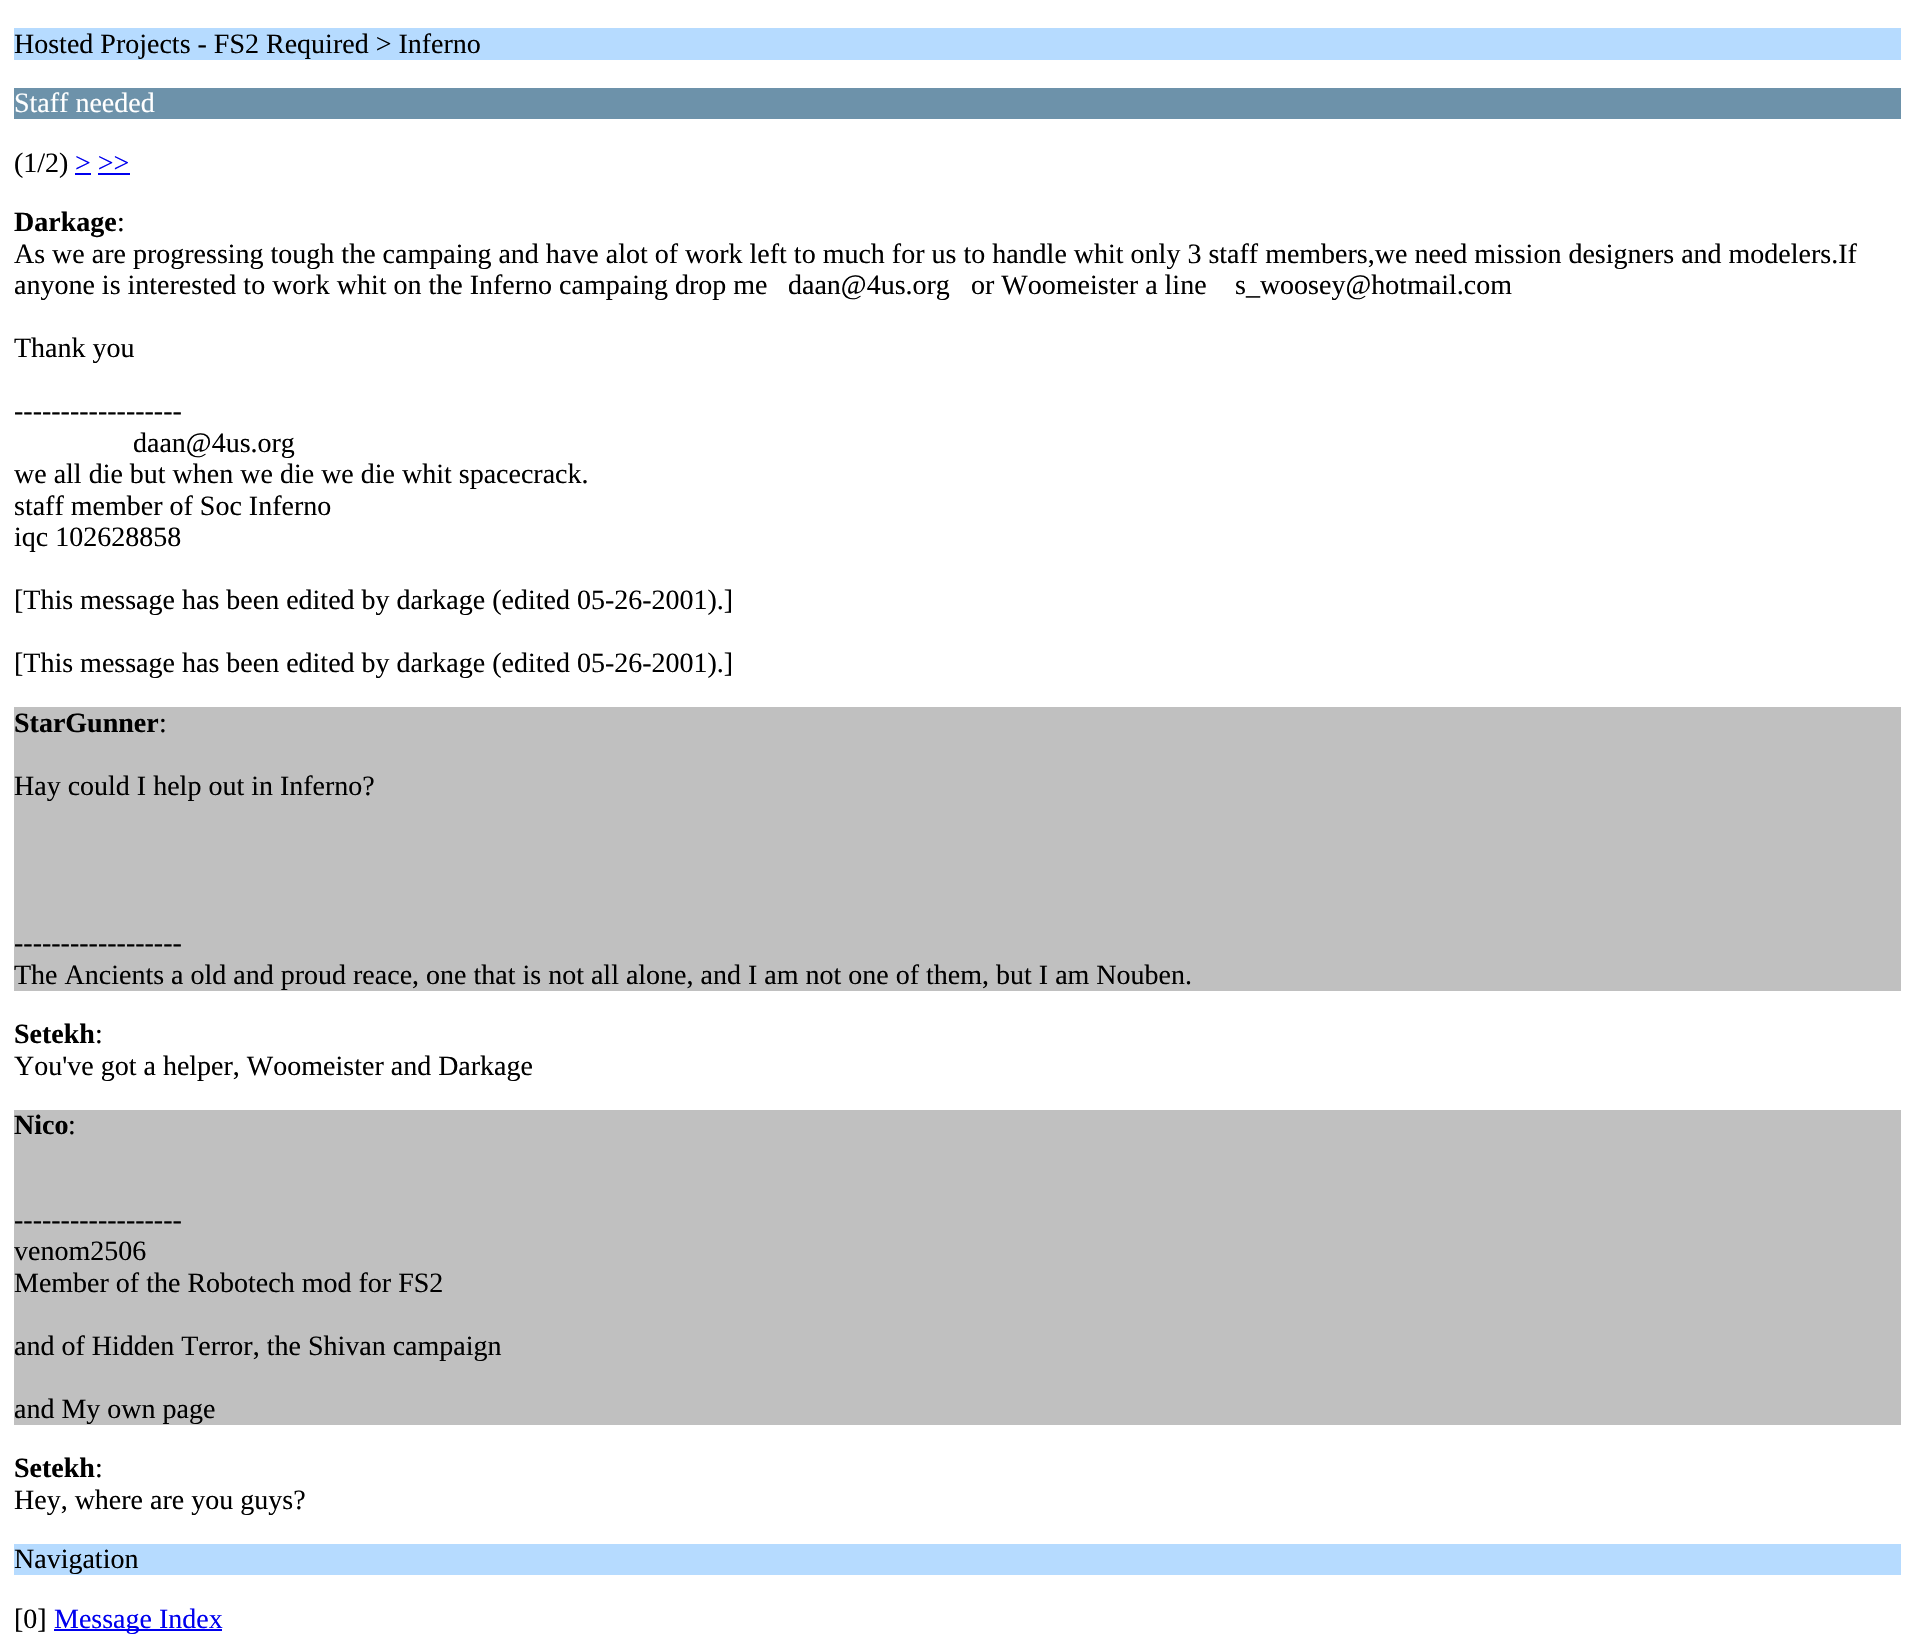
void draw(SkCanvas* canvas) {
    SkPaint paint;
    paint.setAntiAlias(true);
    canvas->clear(0xFFFFFFFF);
    paint.setColor(0xFFB6DBFF);
    canvas->drawRect(SkRect::MakeXYWH(14, 28, 1887, 32), paint);
    SkFont font1(fontMgr->matchFamilyStyle("Liberation Serif", SkFontStyle::Normal()), 28);
    font1.setSubpixel(true);
    paint.setColor(0xFF000000);
    canvas->drawString("Hosted Projects - FS2 Required > Inferno", 14, 53, font1, paint);
    paint.setColor(0xFF6D92AA);
    canvas->drawRect(SkRect::MakeXYWH(14, 88, 1887, 31), paint);
    paint.setColor(0xFFFFFFFF);
    canvas->drawString("Staff needed", 14, 112, font1, paint);
    paint.setColor(0xFF000000);
    canvas->drawString("(1/2)", 14, 172, font1, paint);
    paint.setColor(0xFF0000EE);
    canvas->drawString("> >>", 75, 172, font1, paint);
    canvas->drawRect(SkRect::MakeXYWH(75, 173, 16, 2), paint);
    canvas->drawRect(SkRect::MakeXYWH(98, 173, 32, 2), paint);
    SkFont font2(fontMgr->matchFamilyStyle("Liberation Serif", SkFontStyle::Bold()), 28);
    font2.setSubpixel(true);
    paint.setColor(0xFF000000);
    canvas->drawString("Darkage", 14, 231, font2, paint);
    canvas->drawString(":", 117, 231, font1, paint);
    canvas->drawString("As we are progressing tough the campaing and have alot of work left to much for us to handle whit only 3 staff members,we need mission designers and modelers.If", 14, 263, font1, paint);
    canvas->drawString("anyone is interested to work whit on the Inferno campaing drop me", 14, 294, font1, paint);
    canvas->drawString("daan@4us.org", 788, 294, font1, paint);
    canvas->drawString("or Woomeister a line", 971, 294, font1, paint);
    canvas->drawString("s_woosey@hotmail.com", 1235, 294, font1, paint);
    canvas->drawString("Thank you", 14, 357, font1, paint);
    canvas->drawString("------------------", 14, 420, font1, paint);
    canvas->drawString("daan@4us.org", 133, 452, font1, paint);
    canvas->drawString("we all die but when we die we die whit spacecrack.", 14, 483, font1, paint);
    canvas->drawString("staff member of Soc Inferno", 14, 515, font1, paint);
    canvas->drawString("iqc 102628858", 14, 546, font1, paint);
    canvas->drawString("[This message has been edited by darkage (edited 05-26-2001).]", 14, 609, font1, paint);
    canvas->drawString("[This message has been edited by darkage (edited 05-26-2001).]", 14, 672, font1, paint);
    paint.setColor(0xFFC0C0C0);
    canvas->drawRect(SkRect::MakeXYWH(14, 707, 1887, 284), paint);
    paint.setColor(0xFF000000);
    canvas->drawString("StarGunner", 14, 732, font2, paint);
    canvas->drawString(":", 159, 732, font1, paint);
    canvas->drawString("Hay could I help out in Inferno?", 14, 795, font1, paint);
    canvas->drawString("------------------", 14, 952, font1, paint);
    canvas->drawString("The Ancients a old and proud reace, one that is not all alone, and I am not one of them, but I am Nouben.", 14, 984, font1, paint);
    canvas->drawString("Setekh", 14, 1043, font2, paint);
    canvas->drawString(":", 95, 1043, font1, paint);
    canvas->drawString("You've got a helper, Woomeister and Darkage", 14, 1075, font1, paint);
    paint.setColor(0xFFC0C0C0);
    canvas->drawRect(SkRect::MakeXYWH(14, 1110, 1887, 315), paint);
    paint.setColor(0xFF000000);
    canvas->drawString("Nico", 14, 1134, font2, paint);
    canvas->drawString(":", 68, 1134, font1, paint);
    canvas->drawString("------------------", 14, 1229, font1, paint);
    canvas->drawString("venom2506", 14, 1260, font1, paint);
    canvas->drawString("Member of the Robotech mod for FS2", 14, 1292, font1, paint);
    canvas->drawString("and of Hidden Terror, the Shivan campaign", 14, 1355, font1, paint);
    canvas->drawString("and My own page", 14, 1418, font1, paint);
    canvas->drawString("Setekh", 14, 1477, font2, paint);
    canvas->drawString(":", 95, 1477, font1, paint);
    canvas->drawString("Hey, where are you guys?", 14, 1509, font1, paint);
    paint.setColor(0xFFB6DBFF);
    canvas->drawRect(SkRect::MakeXYWH(14, 1544, 1887, 31), paint);
    paint.setColor(0xFF000000);
    canvas->drawString("Navigation", 14, 1568, font1, paint);
    canvas->drawString("[0]", 14, 1628, font1, paint);
    paint.setColor(0xFF0000EE);
    canvas->drawRect(SkRect::MakeXYWH(54, 1629, 168, 2), paint);
    canvas->drawString("Message Index", 54, 1628, font1, paint);
}
